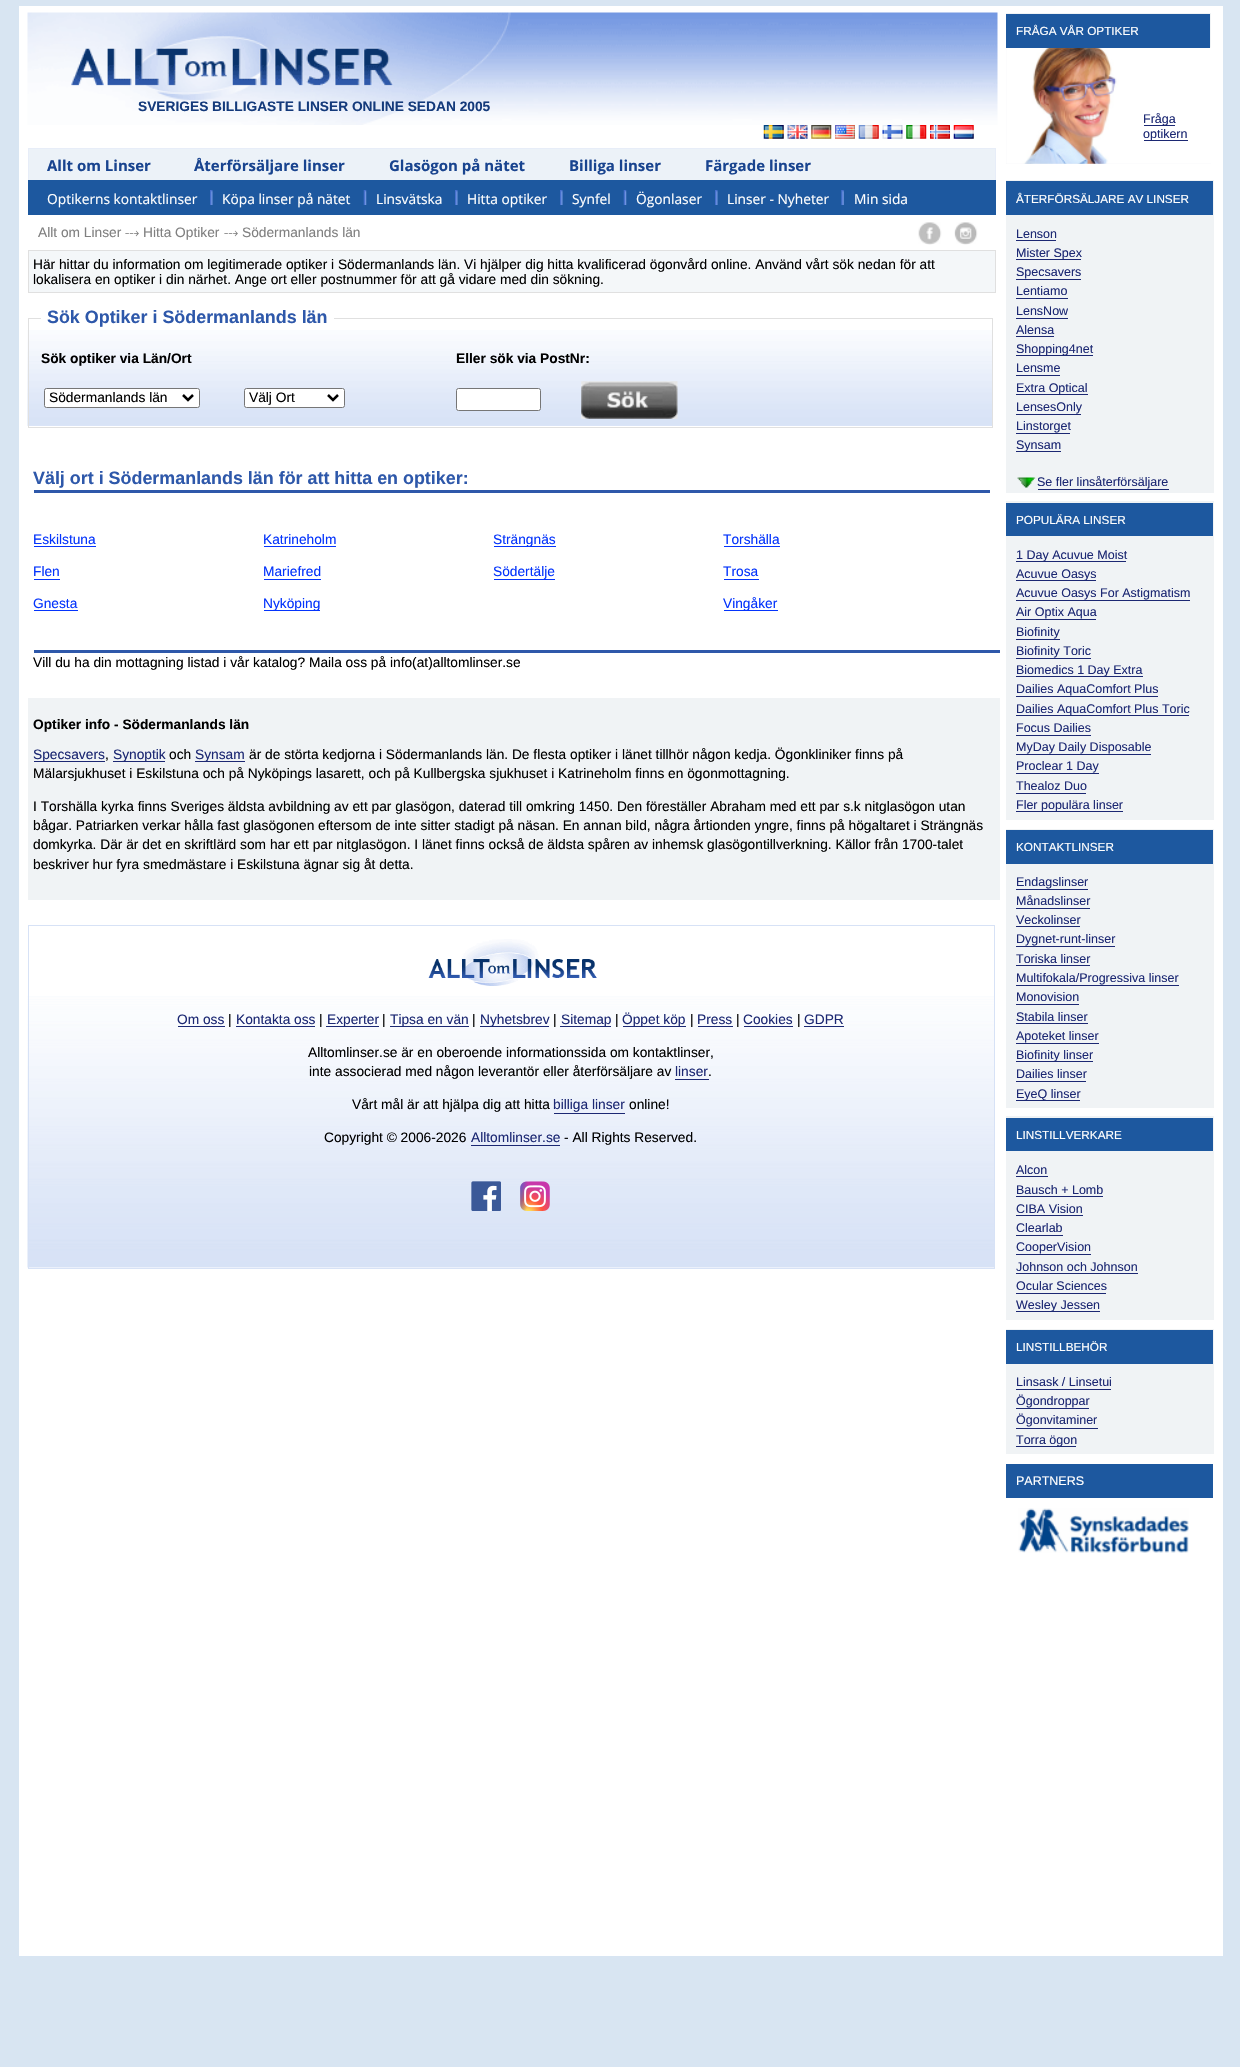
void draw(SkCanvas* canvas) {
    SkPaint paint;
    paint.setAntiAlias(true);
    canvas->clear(0xFFD8E5F2);
    paint.setColor(0xFFFFFFFF);
    canvas->drawRect(SkRect::MakeXYWH(19, 6, 1204, 1950), paint);
    canvas->drawImageRect(SkImages::DeferredFromEncodedData(SkData::MakeFromFileName("img1.png")), SkRect::MakeXYWH(27, 12, 971, 113), SkSamplingOptions());
    canvas->drawImageRect(SkImages::DeferredFromEncodedData(SkData::MakeFromFileName("img2.png")), SkRect::MakeXYWH(763, 125, 21, 14), SkSamplingOptions());
    canvas->drawImageRect(SkImages::DeferredFromEncodedData(SkData::MakeFromFileName("img3.png")), SkRect::MakeXYWH(787, 125, 21, 14), SkSamplingOptions());
    canvas->drawImageRect(SkImages::DeferredFromEncodedData(SkData::MakeFromFileName("img4.png")), SkRect::MakeXYWH(811, 125, 21, 14), SkSamplingOptions());
    canvas->drawImageRect(SkImages::DeferredFromEncodedData(SkData::MakeFromFileName("img5.png")), SkRect::MakeXYWH(835, 125, 20, 14), SkSamplingOptions());
    canvas->drawImageRect(SkImages::DeferredFromEncodedData(SkData::MakeFromFileName("img6.png")), SkRect::MakeXYWH(858, 125, 21, 14), SkSamplingOptions());
    canvas->drawImageRect(SkImages::DeferredFromEncodedData(SkData::MakeFromFileName("img7.png")), SkRect::MakeXYWH(882, 125, 21, 14), SkSamplingOptions());
    canvas->drawImageRect(SkImages::DeferredFromEncodedData(SkData::MakeFromFileName("img8.png")), SkRect::MakeXYWH(906, 125, 21, 14), SkSamplingOptions());
    canvas->drawImageRect(SkImages::DeferredFromEncodedData(SkData::MakeFromFileName("img9.png")), SkRect::MakeXYWH(930, 125, 20, 14), SkSamplingOptions());
    canvas->drawImageRect(SkImages::DeferredFromEncodedData(SkData::MakeFromFileName("img10.png")), SkRect::MakeXYWH(953, 125, 21, 14), SkSamplingOptions());
    paint.setColor(0xFFF0F3F5);
    canvas->drawRect(SkRect::MakeXYWH(1006, 13, 205, 151), paint);
    canvas->drawImageRect(SkImages::DeferredFromEncodedData(SkData::MakeFromFileName("img11.png")), SkRect::MakeXYWH(1006, 47, 205, 117), SkSamplingOptions());
    paint.setColor(0xFF1D589F);
    canvas->drawRect(SkRect::MakeXYWH(1006, 14, 204, 34), paint);
    SkFont font1(fontMgr->matchFamilyStyle("Liberation Sans", SkFontStyle::Normal()), 11.75f);
    font1.setSubpixel(true);
    paint.setColor(0xFFFFFFFF);
    canvas->drawString("FRÅGA VÅR OPTIKER", 1016, 35, font1, paint);
    paint.setColor(0xFF1C2873);
    canvas->drawRect(SkRect::MakeXYWH(1144, 125, 31, 1), paint);
    SkFont font2(fontMgr->matchFamilyStyle("Liberation Sans", SkFontStyle::Normal()), 12.5f);
    font2.setSubpixel(true);
    canvas->drawString("Fråga", 1143, 123, font2, paint);
    canvas->drawRect(SkRect::MakeXYWH(1144, 140, 44, 1), paint);
    canvas->drawString("optikern", 1143, 138, font2, paint);
    paint.setColor(0xFFF0F3F5);
    canvas->drawRect(SkRect::MakeXYWH(1006, 180, 208, 313), paint);
    paint.setColor(0xFF1D589F);
    canvas->drawRect(SkRect::MakeXYWH(1006, 181, 207, 34), paint);
    paint.setColor(0xFFFFFFFF);
    canvas->drawString("ÅTERFÖRSÄLJARE AV LINSER", 1016, 203, font1, paint);
    paint.setColor(0xFF1C2873);
    canvas->drawString("Lenson", 1016, 238, font2, paint);
    canvas->drawRect(SkRect::MakeXYWH(1016, 240, 40, 1), paint);
    canvas->drawRect(SkRect::MakeXYWH(1016, 259, 65, 1), paint);
    canvas->drawString("Mister Spex", 1016, 257, font2, paint);
    canvas->drawString("Specsavers", 1016, 276, font2, paint);
    canvas->drawRect(SkRect::MakeXYWH(1016, 279, 65, 1), paint);
    canvas->drawString("Lentiamo", 1016, 295, font2, paint);
    canvas->drawRect(SkRect::MakeXYWH(1016, 298, 52, 1), paint);
    canvas->drawString("LensNow", 1016, 315, font2, paint);
    canvas->drawRect(SkRect::MakeXYWH(1016, 318, 52, 1), paint);
    canvas->drawString("Alensa", 1016, 334, font2, paint);
    canvas->drawRect(SkRect::MakeXYWH(1016, 336, 38, 1), paint);
    canvas->drawRect(SkRect::MakeXYWH(1016, 355, 77, 1), paint);
    canvas->drawString("Shopping4net", 1016, 353, font2, paint);
    canvas->drawString("Lensme", 1016, 372, font2, paint);
    canvas->drawRect(SkRect::MakeXYWH(1016, 375, 44, 1), paint);
    canvas->drawRect(SkRect::MakeXYWH(1016, 394, 72, 1), paint);
    canvas->drawString("Extra Optical", 1016, 392, font2, paint);
    canvas->drawString("LensesOnly", 1016, 411, font2, paint);
    canvas->drawRect(SkRect::MakeXYWH(1016, 414, 65, 1), paint);
    canvas->drawString("Linstorget", 1016, 430, font2, paint);
    canvas->drawRect(SkRect::MakeXYWH(1016, 433, 54, 1), paint);
    canvas->drawRect(SkRect::MakeXYWH(1016, 451, 45, 1), paint);
    canvas->drawString("Synsam", 1016, 449, font2, paint);
    canvas->drawImageRect(SkImages::DeferredFromEncodedData(SkData::MakeFromFileName("img12.png")), SkRect::MakeXYWH(1017, 477, 19, 11), SkSamplingOptions());
    canvas->drawString("Se fler linsåterförsäljare", 1037, 486, font2, paint);
    canvas->drawRect(SkRect::MakeXYWH(1038, 489, 131, 1), paint);
    paint.setColor(0xFFF0F3F5);
    canvas->drawRect(SkRect::MakeXYWH(1006, 501, 208, 319), paint);
    paint.setColor(0xFF1D589F);
    canvas->drawRect(SkRect::MakeXYWH(1006, 503, 207, 33), paint);
    paint.setColor(0xFFFFFFFF);
    canvas->drawString("POPULÄRA LINSER", 1016, 524, font1, paint);
    paint.setColor(0xFF1C2873);
    canvas->drawRect(SkRect::MakeXYWH(1016, 561, 110, 1), paint);
    canvas->drawString("1 Day Acuvue Moist", 1016, 559, font2, paint);
    canvas->drawRect(SkRect::MakeXYWH(1016, 580, 80, 1), paint);
    canvas->drawString("Acuvue Oasys", 1016, 578, font2, paint);
    canvas->drawString("Acuvue Oasys For Astigmatism", 1016, 597, font2, paint);
    canvas->drawRect(SkRect::MakeXYWH(1016, 600, 174, 1), paint);
    canvas->drawString("Air Optix Aqua", 1016, 616, font2, paint);
    canvas->drawRect(SkRect::MakeXYWH(1016, 619, 80, 1), paint);
    canvas->drawString("Biofinity", 1016, 636, font2, paint);
    canvas->drawRect(SkRect::MakeXYWH(1016, 639, 44, 1), paint);
    canvas->drawString("Biofinity Toric", 1016, 655, font2, paint);
    canvas->drawRect(SkRect::MakeXYWH(1016, 658, 75, 1), paint);
    canvas->drawRect(SkRect::MakeXYWH(1016, 676, 127, 1), paint);
    canvas->drawString("Biomedics 1 Day Extra", 1016, 674, font2, paint);
    canvas->drawString("Dailies AquaComfort Plus", 1016, 693, font2, paint);
    canvas->drawRect(SkRect::MakeXYWH(1016, 696, 142, 1), paint);
    canvas->drawRect(SkRect::MakeXYWH(1016, 715, 173, 1), paint);
    canvas->drawString("Dailies AquaComfort Plus Toric", 1016, 713, font2, paint);
    canvas->drawString("Focus Dailies", 1016, 732, font2, paint);
    canvas->drawRect(SkRect::MakeXYWH(1016, 735, 75, 1), paint);
    canvas->drawString("MyDay Daily Disposable", 1016, 751, font2, paint);
    canvas->drawRect(SkRect::MakeXYWH(1016, 754, 135, 1), paint);
    canvas->drawString("Proclear 1 Day", 1016, 770, font2, paint);
    canvas->drawRect(SkRect::MakeXYWH(1016, 773, 83, 1), paint);
    canvas->drawString("Thealoz Duo", 1016, 790, font2, paint);
    canvas->drawRect(SkRect::MakeXYWH(1016, 793, 70, 1), paint);
    canvas->drawRect(SkRect::MakeXYWH(1016, 811, 107, 1), paint);
    canvas->drawString("Fler populära linser", 1016, 809, font2, paint);
    paint.setColor(0xFFF0F3F5);
    canvas->drawRect(SkRect::MakeXYWH(1006, 829, 208, 279), paint);
    paint.setColor(0xFF1D589F);
    canvas->drawRect(SkRect::MakeXYWH(1006, 830, 207, 34), paint);
    paint.setColor(0xFFFFFFFF);
    canvas->drawString("KONTAKTLINSER", 1016, 851, font1, paint);
    paint.setColor(0xFF1C2873);
    canvas->drawString("Endagslinser", 1016, 886, font2, paint);
    canvas->drawRect(SkRect::MakeXYWH(1016, 889, 72, 1), paint);
    canvas->drawString("Månadslinser", 1016, 905, font2, paint);
    canvas->drawRect(SkRect::MakeXYWH(1016, 908, 74, 1), paint);
    canvas->drawString("Veckolinser", 1016, 924, font2, paint);
    canvas->drawRect(SkRect::MakeXYWH(1016, 926, 64, 1), paint);
    canvas->drawString("Dygnet-runt-linser", 1016, 943, font2, paint);
    canvas->drawRect(SkRect::MakeXYWH(1016, 946, 99, 1), paint);
    canvas->drawString("Toriska linser", 1016, 963, font2, paint);
    canvas->drawRect(SkRect::MakeXYWH(1016, 965, 74, 1), paint);
    canvas->drawString("Multifokala/Progressiva linser", 1016, 982, font2, paint);
    canvas->drawRect(SkRect::MakeXYWH(1016, 985, 163, 1), paint);
    canvas->drawString("Monovision", 1016, 1001, font2, paint);
    canvas->drawRect(SkRect::MakeXYWH(1016, 1004, 63, 1), paint);
    canvas->drawString("Stabila linser", 1016, 1021, font2, paint);
    canvas->drawRect(SkRect::MakeXYWH(1016, 1023, 72, 1), paint);
    canvas->drawString("Apoteket linser", 1016, 1040, font2, paint);
    canvas->drawRect(SkRect::MakeXYWH(1016, 1043, 83, 1), paint);
    canvas->drawRect(SkRect::MakeXYWH(1016, 1061, 77, 1), paint);
    canvas->drawString("Biofinity linser", 1016, 1059, font2, paint);
    canvas->drawString("Dailies linser", 1016, 1078, font2, paint);
    canvas->drawRect(SkRect::MakeXYWH(1016, 1081, 70, 1), paint);
    canvas->drawRect(SkRect::MakeXYWH(1016, 1100, 64, 1), paint);
    canvas->drawString("EyeQ linser", 1016, 1098, font2, paint);
    paint.setColor(0xFFF0F3F5);
    canvas->drawRect(SkRect::MakeXYWH(1006, 1116, 208, 204), paint);
    paint.setColor(0xFF1D589F);
    canvas->drawRect(SkRect::MakeXYWH(1006, 1118, 207, 33), paint);
    paint.setColor(0xFFFFFFFF);
    canvas->drawString("LINSTILLVERKARE", 1016, 1139, font1, paint);
    paint.setColor(0xFF1C2873);
    canvas->drawString("Alcon", 1016, 1174, font2, paint);
    canvas->drawRect(SkRect::MakeXYWH(1016, 1176, 32, 1), paint);
    canvas->drawString("Bausch + Lomb", 1016, 1194, font2, paint);
    canvas->drawRect(SkRect::MakeXYWH(1016, 1196, 87, 1), paint);
    canvas->drawString("CIBA Vision", 1016, 1213, font2, paint);
    canvas->drawRect(SkRect::MakeXYWH(1016, 1215, 67, 1), paint);
    canvas->drawString("Clearlab", 1016, 1232, font2, paint);
    canvas->drawRect(SkRect::MakeXYWH(1016, 1235, 47, 1), paint);
    canvas->drawString("CooperVision", 1016, 1251, font2, paint);
    canvas->drawRect(SkRect::MakeXYWH(1016, 1254, 75, 1), paint);
    canvas->drawString("Johnson och Johnson", 1016, 1271, font2, paint);
    canvas->drawRect(SkRect::MakeXYWH(1016, 1273, 122, 1), paint);
    canvas->drawString("Ocular Sciences", 1016, 1290, font2, paint);
    canvas->drawRect(SkRect::MakeXYWH(1016, 1293, 90, 1), paint);
    canvas->drawRect(SkRect::MakeXYWH(1016, 1311, 84, 1), paint);
    canvas->drawString("Wesley Jessen", 1016, 1309, font2, paint);
    paint.setColor(0xFFF0F3F5);
    canvas->drawRect(SkRect::MakeXYWH(1006, 1329, 208, 125), paint);
    paint.setColor(0xFF1D589F);
    canvas->drawRect(SkRect::MakeXYWH(1006, 1330, 207, 34), paint);
    paint.setColor(0xFFFFFFFF);
    canvas->drawString("LINSTILLBEHÖR", 1016, 1351, font1, paint);
    paint.setColor(0xFF1C2873);
    canvas->drawString("Linsask / Linsetui", 1016, 1386, font2, paint);
    canvas->drawRect(SkRect::MakeXYWH(1016, 1389, 95, 1), paint);
    canvas->drawString("Ögondroppar", 1016, 1405, font2, paint);
    canvas->drawRect(SkRect::MakeXYWH(1016, 1408, 73, 1), paint);
    canvas->drawString("Ögonvitaminer", 1016, 1424, font2, paint);
    canvas->drawRect(SkRect::MakeXYWH(1016, 1428, 82, 1), paint);
    canvas->drawRect(SkRect::MakeXYWH(1016, 1446, 60, 1), paint);
    canvas->drawString("Torra ögon", 1016, 1444, font2, paint);
    paint.setColor(0xFF1D589F);
    canvas->drawRect(SkRect::MakeXYWH(1006, 1464, 207, 34), paint);
    paint.setColor(0xFFFFFFFF);
    canvas->drawString("PARTNERS", 1016, 1485, font2, paint);
    canvas->drawImageRect(SkImages::DeferredFromEncodedData(SkData::MakeFromFileName("img13.png")), SkRect::MakeXYWH(1018, 1508, 171, 45), SkSamplingOptions());
    SkFont font3(fontMgr->matchFamilyStyle("Liberation Sans", SkFontStyle::Bold()), 13.75f);
    font3.setSubpixel(true);
    paint.setColor(0xFF143A7B);
    canvas->drawString("SVERIGES BILLIGASTE LINSER ONLINE SEDAN 2005", 138, 111, font3, paint);
    paint.setColor(0xFFECF2F8);
    canvas->drawRect(SkRect::MakeXYWH(29, 149, 966, 31), paint);
    paint.setColor(0xFFE7EDF8);
    canvas->drawRect(SkRect::MakeXYWH(28, 148, 968, 1), paint);
    canvas->drawRect(SkRect::MakeXYWH(995, 148, 1, 32), paint);
    canvas->drawRect(SkRect::MakeXYWH(28, 148, 1, 32), paint);
    SkFont font4(fontMgr->matchFamilyStyle("Open Sans", SkFontStyle::Bold()), 15);
    font4.setSubpixel(true);
    paint.setColor(0xFF19448F);
    canvas->drawString("Allt om Linser", 47, 171, font4, paint);
    canvas->drawString("Återförsäljare linser", 194, 171, font4, paint);
    canvas->drawString("Glasögon på nätet", 389, 171, font4, paint);
    canvas->drawString("Billiga linser", 569, 171, font4, paint);
    canvas->drawString("Färgade linser", 705, 171, font4, paint);
    paint.setColor(0xFF1D589F);
    canvas->drawRect(SkRect::MakeXYWH(28, 180, 968, 35), paint);
    SkFont font5(fontMgr->matchFamilyStyle("Open Sans", SkFontStyle::Normal()), 13.75f);
    font5.setSubpixel(true);
    paint.setColor(0xFFFFFFFF);
    canvas->drawString("Optikerns kontaktlinser", 47, 204, font5, paint);
    canvas->drawImageRect(SkImages::DeferredFromEncodedData(SkData::MakeFromFileName("img14.png")), SkRect::MakeXYWH(210, 190, 3, 15), SkSamplingOptions());
    canvas->drawString("Köpa linser på nätet", 222, 204, font5, paint);
    canvas->drawImageRect(SkImages::DeferredFromEncodedData(SkData::MakeFromFileName("img15.png")), SkRect::MakeXYWH(363, 190, 4, 15), SkSamplingOptions());
    canvas->drawString("Linsvätska", 376, 204, font5, paint);
    canvas->drawImageRect(SkImages::DeferredFromEncodedData(SkData::MakeFromFileName("img14.png")), SkRect::MakeXYWH(455, 190, 3, 15), SkSamplingOptions());
    canvas->drawString("Hitta optiker", 467, 204, font5, paint);
    canvas->drawImageRect(SkImages::DeferredFromEncodedData(SkData::MakeFromFileName("img14.png")), SkRect::MakeXYWH(560, 190, 3, 15), SkSamplingOptions());
    canvas->drawString("Synfel", 572, 204, font5, paint);
    canvas->drawImageRect(SkImages::DeferredFromEncodedData(SkData::MakeFromFileName("img15.png")), SkRect::MakeXYWH(623, 190, 4, 15), SkSamplingOptions());
    canvas->drawString("Ögonlaser", 636, 204, font5, paint);
    canvas->drawImageRect(SkImages::DeferredFromEncodedData(SkData::MakeFromFileName("img14.png")), SkRect::MakeXYWH(715, 190, 3, 15), SkSamplingOptions());
    canvas->drawString("Linser - Nyheter", 727, 204, font5, paint);
    canvas->drawImageRect(SkImages::DeferredFromEncodedData(SkData::MakeFromFileName("img16.png")), SkRect::MakeXYWH(841, 190, 3, 15), SkSamplingOptions());
    canvas->drawString("Min sida", 854, 204, font5, paint);
    SkFont font6(fontMgr->matchFamilyStyle("Liberation Sans", SkFontStyle::Normal()), 13.75f);
    font6.setSubpixel(true);
    paint.setColor(0xFF808080);
    canvas->drawString("Allt om Linser", 38, 237, font6, paint);
    SkFont font7(fontMgr->matchFamilyStyle("FreeSerif", SkFontStyle::Normal()), 13.75f);
    font7.setSubpixel(true);
    canvas->drawString("⤏", 125, 237, font7, paint);
    canvas->drawString("Hitta Optiker", 143, 237, font6, paint);
    canvas->drawString("⤏", 224, 237, font7, paint);
    canvas->drawString("Södermanlands län", 242, 237, font6, paint);
    canvas->drawImageRect(SkImages::DeferredFromEncodedData(SkData::MakeFromFileName("img17.png")), SkRect::MakeXYWH(918, 222, 24, 23), SkSamplingOptions());
    canvas->drawImageRect(SkImages::DeferredFromEncodedData(SkData::MakeFromFileName("img18.png")), SkRect::MakeXYWH(954, 222, 24, 23), SkSamplingOptions());
    paint.setColor(0xFFF4F7F9);
    canvas->drawRect(SkRect::MakeXYWH(28.5f, 250.5f, 967, 42), paint);
    paint.setStyle(SkPaint::kStroke_Style);
    paint.setStrokeWidth(1);
    paint.setColor(0xFFE0E0E0);
    canvas->drawRect(SkRect::MakeXYWH(28.5f, 250.5f, 967, 42), paint);
    paint.setStyle(SkPaint::kFill_Style);
    paint.setColor(0xFF000000);
    canvas->drawString("Här hittar du information om legitimerade optiker i Södermanlands län. Vi hjälper dig hitta kvalificerad ögonvård online. Använd vårt sök nedan för att", 33, 269, font6, paint);
    canvas->drawString("lokalisera en optiker i din närhet. Ange ort eller postnummer för att gå vidare med din sökning.", 33, 284, font6, paint);
    canvas->drawImageRect(SkImages::DeferredFromEncodedData(SkData::MakeFromFileName("img19.png")), SkRect::MakeXYWH(27, 330, 965, 96), SkSamplingOptions());
    paint.setStyle(SkPaint::kStroke_Style);
    paint.setColor(0xFFE0E0E0);
    canvas->drawRect(SkRect::MakeXYWH(28.5f, 318.5f, 964, 109), paint);
    paint.setStyle(SkPaint::kFill_Style);
    paint.setColor(0xFFFFFFFF);
    canvas->drawRect(SkRect::MakeXYWH(41, 318, 293, 1), paint);
    SkFont font8(fontMgr->matchFamilyStyle("Liberation Sans", SkFontStyle::Bold()), 17.9f);
    font8.setSubpixel(true);
    paint.setColor(0xFF2E58AA);
    canvas->drawString("Sök Optiker i Södermanlands län", 47, 323, font8, paint);
    paint.setColor(0xFF000000);
    canvas->drawString("Sök optiker via Län/Ort", 41, 363, font3, paint);
    paint.setColor(0xFFFFFFFF);
    canvas->drawRoundRect(SkRect::MakeXYWH(44.5f, 388.5f, 155, 19), 2, 2, paint);
    paint.setStyle(SkPaint::kStroke_Style);
    paint.setColor(0xFF767676);
    canvas->drawRoundRect(SkRect::MakeXYWH(44.5f, 388.5f, 155, 19), 2, 2, paint);
    paint.setStrokeWidth(2.5f);
    paint.setColor(0xFF000000);
    canvas->drawPath(SkPathBuilder().moveTo(183, 395).lineTo(188, 400).lineTo(193, 395).detach(), paint);
    paint.setStyle(SkPaint::kFill_Style);
    canvas->drawString("Södermanlands län", 49, 402, font6, paint);
    paint.setColor(0xFFFFFFFF);
    canvas->drawRoundRect(SkRect::MakeXYWH(244.5f, 388.5f, 100, 19), 2, 2, paint);
    paint.setStyle(SkPaint::kStroke_Style);
    paint.setStrokeWidth(1);
    paint.setColor(0xFF767676);
    canvas->drawRoundRect(SkRect::MakeXYWH(244.5f, 388.5f, 100, 19), 2, 2, paint);
    paint.setStrokeWidth(2.5f);
    paint.setColor(0xFF000000);
    canvas->drawPath(SkPathBuilder().moveTo(328, 395).lineTo(333, 400).lineTo(338, 395).detach(), paint);
    paint.setStyle(SkPaint::kFill_Style);
    canvas->drawString("Välj Ort", 249, 402, font6, paint);
    canvas->drawString("Eller sök via PostNr:", 456, 363, font3, paint);
    paint.setColor(0xFFFFFFFF);
    canvas->drawRoundRect(SkRect::MakeXYWH(456.5f, 388.5f, 84, 22), 2, 2, paint);
    paint.setStyle(SkPaint::kStroke_Style);
    paint.setStrokeWidth(1);
    paint.setColor(0xFF767676);
    canvas->drawRoundRect(SkRect::MakeXYWH(456.5f, 388.5f, 84, 22), 2, 2, paint);
    canvas->drawImageRect(SkImages::DeferredFromEncodedData(SkData::MakeFromFileName("img20.png")), SkRect::MakeXYWH(581, 381, 97, 38), SkSamplingOptions());
    paint.setStyle(SkPaint::kFill_Style);
    paint.setColor(0xFF2E58AA);
    canvas->drawRect(SkRect::MakeXYWH(34, 490, 956, 3), paint);
    canvas->drawString("Välj ort i Södermanlands län för att hitta en optiker:", 33, 484, font8, paint);
    paint.setColor(0xFF0434FC);
    canvas->drawString("Eskilstuna", 33, 544, font6, paint);
    canvas->drawRect(SkRect::MakeXYWH(34, 546, 62, 1), paint);
    canvas->drawString("Flen", 33, 576, font6, paint);
    canvas->drawRect(SkRect::MakeXYWH(34, 579, 26, 1), paint);
    canvas->drawString("Gnesta", 33, 608, font6, paint);
    canvas->drawRect(SkRect::MakeXYWH(34, 610, 44, 1), paint);
    canvas->drawString("Katrineholm", 263, 544, font6, paint);
    canvas->drawRect(SkRect::MakeXYWH(264, 546, 72, 1), paint);
    canvas->drawString("Mariefred", 263, 576, font6, paint);
    canvas->drawRect(SkRect::MakeXYWH(264, 579, 57, 1), paint);
    canvas->drawRect(SkRect::MakeXYWH(264, 610, 56, 1), paint);
    canvas->drawString("Nyköping", 263, 608, font6, paint);
    canvas->drawRect(SkRect::MakeXYWH(494, 546, 62, 1), paint);
    canvas->drawString("Strängnäs", 493, 544, font6, paint);
    canvas->drawString("Södertälje", 493, 576, font6, paint);
    canvas->drawRect(SkRect::MakeXYWH(494, 579, 61, 1), paint);
    canvas->drawString("Torshälla", 723, 544, font6, paint);
    canvas->drawRect(SkRect::MakeXYWH(724, 546, 56, 1), paint);
    canvas->drawString("Trosa", 723, 576, font6, paint);
    canvas->drawRect(SkRect::MakeXYWH(724, 579, 35, 1), paint);
    canvas->drawRect(SkRect::MakeXYWH(724, 610, 54, 1), paint);
    canvas->drawString("Vingåker", 723, 608, font6, paint);
    paint.setColor(0xFF2E58AA);
    canvas->drawRect(SkRect::MakeXYWH(34, 650, 966, 3), paint);
    paint.setColor(0xFF000000);
    canvas->drawString("Vill du ha din mottagning listad i vår katalog? Maila oss på info(at)alltomlinser.se", 33, 667, font6, paint);
    paint.setColor(0xFFF0F3F5);
    canvas->drawRect(SkRect::MakeXYWH(28, 698, 972, 202), paint);
    paint.setColor(0xFF000000);
    canvas->drawString("Optiker info - Södermanlands län", 33, 729, font3, paint);
    paint.setColor(0xFF1C2873);
    canvas->drawRect(SkRect::MakeXYWH(34, 761, 71, 1), paint);
    canvas->drawString("Specsavers", 33, 759, font6, paint);
    paint.setColor(0xFF000000);
    canvas->drawString(",", 105, 759, font6, paint);
    paint.setColor(0xFF1C2873);
    canvas->drawRect(SkRect::MakeXYWH(113, 761, 52, 1), paint);
    canvas->drawString("Synoptik", 113, 759, font6, paint);
    paint.setColor(0xFF000000);
    canvas->drawString("och", 169, 759, font6, paint);
    paint.setColor(0xFF1C2873);
    canvas->drawRect(SkRect::MakeXYWH(195, 761, 50, 1), paint);
    canvas->drawString("Synsam", 195, 759, font6, paint);
    paint.setColor(0xFF000000);
    canvas->drawString("är de störta kedjorna i Södermanlands län. De flesta optiker i länet tillhör någon kedja. Ögonkliniker finns på", 249, 759, font6, paint);
    canvas->drawString("Mälarsjukhuset i Eskilstuna och på Nyköpings lasarett, och på Kullbergska sjukhuset i Katrineholm finns en ögonmottagning.", 33, 778, font6, paint);
    canvas->drawString("I Torshälla kyrka finns Sveriges äldsta avbildning av ett par glasögon, daterad till omkring 1450. Den föreställer Abraham med ett par s.k nitglasögon utan", 33, 811, font6, paint);
    canvas->drawString("bågar. Patriarken verkar hålla fast glasögonen eftersom de inte sitter stadigt på näsan. En annan bild, några årtionden yngre, finns på högaltaret i Strängnäs", 33, 830, font6, paint);
    canvas->drawString("domkyrka. Där är det en skriftlärd som har ett par nitglasögon. I länet finns också de äldsta spåren av inhemsk glasögontillverkning. Källor från 1700-talet", 33, 849, font6, paint);
    canvas->drawString("beskriver hur fyra smedmästare i Eskilstuna ägnar sig åt detta.", 33, 869, font6, paint);
    canvas->drawImageRect(SkImages::DeferredFromEncodedData(SkData::MakeFromFileName("img21.png")), SkRect::MakeXYWH(27, 996, 967, 272), SkSamplingOptions());
    paint.setStyle(SkPaint::kStroke_Style);
    paint.setColor(0xFFD7E2F6);
    canvas->drawRect(SkRect::MakeXYWH(28.5f, 925.5f, 966, 343), paint);
    canvas->drawImageRect(SkImages::DeferredFromEncodedData(SkData::MakeFromFileName("img22.png")), SkRect::MakeXYWH(428, 939, 169, 47), SkSamplingOptions());
    paint.setStyle(SkPaint::kFill_Style);
    paint.setColor(0xFF1C2873);
    canvas->drawString("Om oss", 177, 1024, font6, paint);
    canvas->drawRect(SkRect::MakeXYWH(178, 1026, 47, 1), paint);
    paint.setColor(0xFF000000);
    canvas->drawString("|", 228, 1024, font6, paint);
    paint.setColor(0xFF1C2873);
    canvas->drawString("Kontakta oss", 236, 1024, font6, paint);
    canvas->drawRect(SkRect::MakeXYWH(236, 1026, 79, 1), paint);
    paint.setColor(0xFF000000);
    canvas->drawString("|", 319, 1024, font6, paint);
    paint.setColor(0xFF1C2873);
    canvas->drawRect(SkRect::MakeXYWH(326, 1026, 53, 1), paint);
    canvas->drawString("Experter", 327, 1024, font6, paint);
    paint.setColor(0xFF000000);
    canvas->drawString("|", 382, 1024, font6, paint);
    paint.setColor(0xFF1C2873);
    canvas->drawRect(SkRect::MakeXYWH(390, 1026, 79, 1), paint);
    canvas->drawString("Tipsa en vän", 390, 1024, font6, paint);
    paint.setColor(0xFF000000);
    canvas->drawString("|", 472, 1024, font6, paint);
    paint.setColor(0xFF1C2873);
    canvas->drawRect(SkRect::MakeXYWH(480, 1026, 69, 1), paint);
    canvas->drawString("Nyhetsbrev", 480, 1024, font6, paint);
    paint.setColor(0xFF000000);
    canvas->drawString("|", 553, 1024, font6, paint);
    paint.setColor(0xFF1C2873);
    canvas->drawRect(SkRect::MakeXYWH(560, 1026, 51, 1), paint);
    canvas->drawString("Sitemap", 561, 1024, font6, paint);
    paint.setColor(0xFF000000);
    canvas->drawString("|", 615, 1024, font6, paint);
    paint.setColor(0xFF1C2873);
    canvas->drawRect(SkRect::MakeXYWH(623, 1026, 63, 1), paint);
    canvas->drawString("Öppet köp", 622, 1024, font6, paint);
    paint.setColor(0xFF000000);
    canvas->drawString("|", 690, 1024, font6, paint);
    paint.setColor(0xFF1C2873);
    canvas->drawString("Press", 697, 1024, font6, paint);
    canvas->drawRect(SkRect::MakeXYWH(698, 1026, 35, 1), paint);
    paint.setColor(0xFF000000);
    canvas->drawString("|", 736, 1024, font6, paint);
    paint.setColor(0xFF1C2873);
    canvas->drawString("Cookies", 743, 1024, font6, paint);
    canvas->drawRect(SkRect::MakeXYWH(744, 1026, 49, 1), paint);
    paint.setColor(0xFF000000);
    canvas->drawString("|", 797, 1024, font6, paint);
    paint.setColor(0xFF1C2873);
    canvas->drawString("GDPR", 804, 1024, font6, paint);
    canvas->drawRect(SkRect::MakeXYWH(804, 1026, 40, 1), paint);
    paint.setColor(0xFF000000);
    canvas->drawString("Alltomlinser.se är en oberoende informationssida om kontaktlinser,", 308, 1057, font6, paint);
    canvas->drawString("inte associerad med någon leverantör eller återförsäljare av", 309, 1076, font6, paint);
    paint.setColor(0xFF1C2873);
    canvas->drawString("linser", 675, 1076, font6, paint);
    canvas->drawRect(SkRect::MakeXYWH(675, 1079, 34, 1), paint);
    paint.setColor(0xFF000000);
    canvas->drawString(".", 708, 1076, font6, paint);
    canvas->drawString("Vårt mål är att hjälpa dig att hitta", 352, 1109, font6, paint);
    paint.setColor(0xFF1C2873);
    canvas->drawString("billiga linser", 553, 1109, font6, paint);
    canvas->drawRect(SkRect::MakeXYWH(554, 1113, 71, 1), paint);
    paint.setColor(0xFF000000);
    canvas->drawString("online!", 629, 1109, font6, paint);
    canvas->drawString("Copyright © 2006-2026", 324, 1142, font6, paint);
    paint.setColor(0xFF1C2873);
    canvas->drawString("Alltomlinser.se", 471, 1142, font6, paint);
    canvas->drawRect(SkRect::MakeXYWH(471, 1145, 89, 1), paint);
    paint.setColor(0xFF000000);
    canvas->drawString("- All Rights Reserved.", 564, 1142, font6, paint);
    canvas->drawImageRect(SkImages::DeferredFromEncodedData(SkData::MakeFromFileName("img23.png")), SkRect::MakeXYWH(471, 1181, 30, 30), SkSamplingOptions());
    canvas->drawImageRect(SkImages::DeferredFromEncodedData(SkData::MakeFromFileName("img24.png")), SkRect::MakeXYWH(520, 1181, 30, 30), SkSamplingOptions());
}
